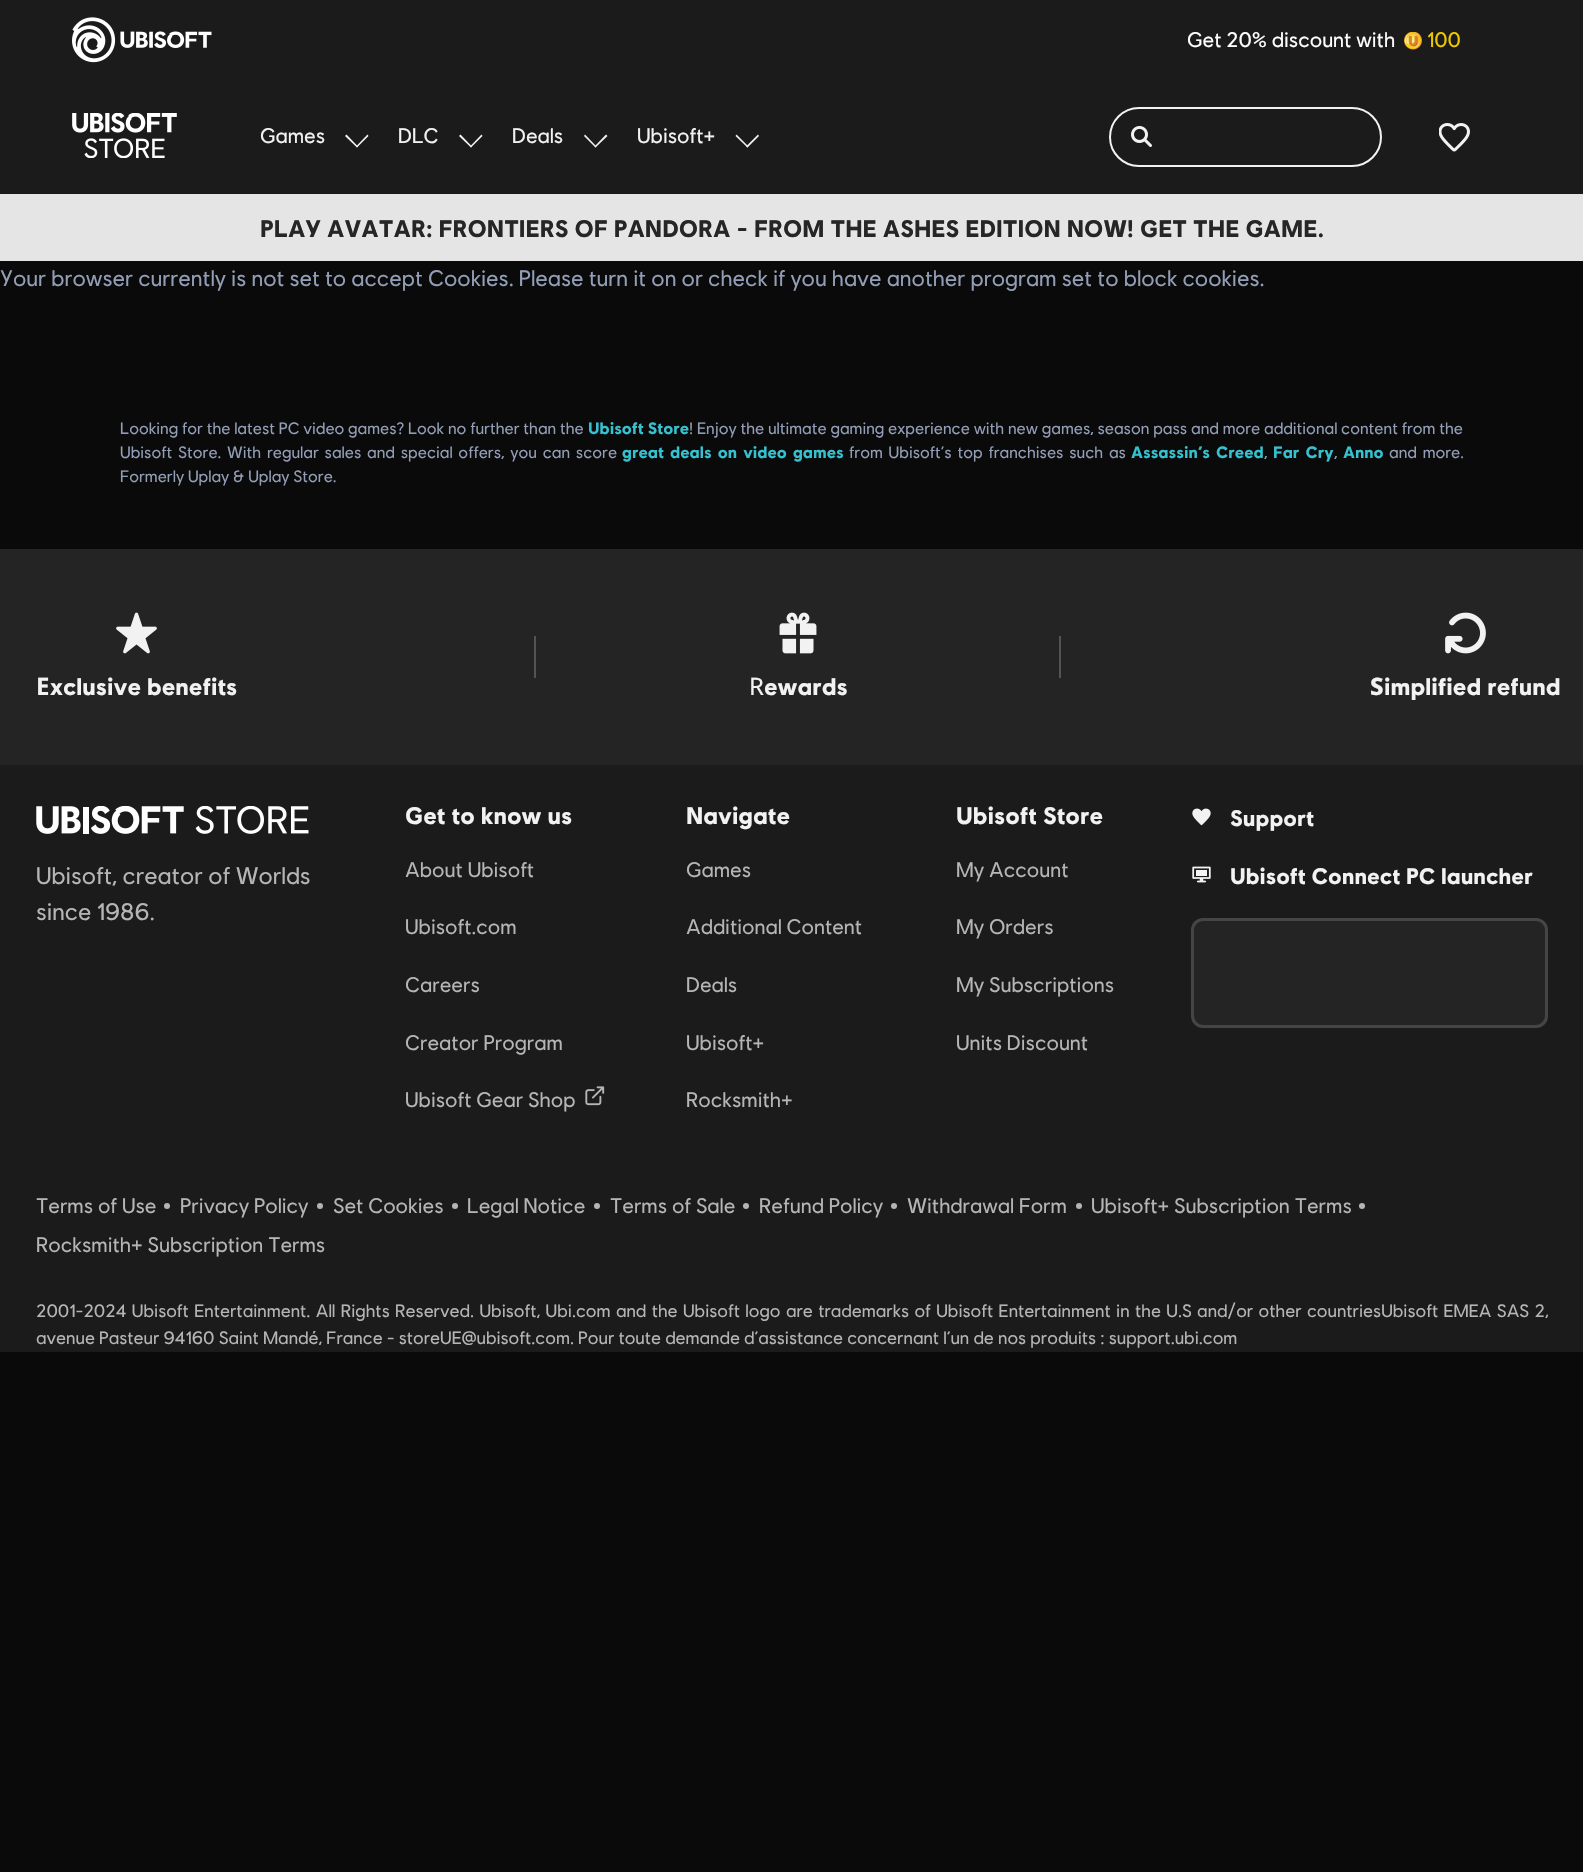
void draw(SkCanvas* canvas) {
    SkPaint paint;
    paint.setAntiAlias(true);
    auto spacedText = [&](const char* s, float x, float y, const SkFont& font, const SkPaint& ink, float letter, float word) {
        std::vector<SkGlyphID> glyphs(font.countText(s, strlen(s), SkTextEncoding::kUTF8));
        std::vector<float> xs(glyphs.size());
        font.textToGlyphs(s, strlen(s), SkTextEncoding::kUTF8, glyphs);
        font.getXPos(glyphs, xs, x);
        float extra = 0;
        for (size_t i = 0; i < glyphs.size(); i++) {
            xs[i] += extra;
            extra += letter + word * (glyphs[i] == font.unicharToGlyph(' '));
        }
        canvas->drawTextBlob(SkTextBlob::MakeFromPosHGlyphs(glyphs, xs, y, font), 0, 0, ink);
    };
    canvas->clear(0xFF0A0A0A);
    paint.setColor(0xFF1B1B1B);
    canvas->drawRect(SkRect::MakeXYWH(0, 0, 1583, 194), paint);
    canvas->drawImageRect(SkImages::DeferredFromEncodedData(SkData::MakeFromFileName("img1.png")), SkRect::MakeXYWH(72, 17, 140, 46), SkSamplingOptions());
    SkFont font1(fontMgr->matchFamilyStyle("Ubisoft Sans", SkFontStyle::Normal()), 21);
    font1.setSubpixel(true);
    paint.setColor(0xFFFFFFFF);
    canvas->drawString("Get 20% discount with", 1187, 47, font1, paint);
    canvas->drawImageRect(SkImages::DeferredFromEncodedData(SkData::MakeFromFileName("img2.png")), SkRect::MakeXYWH(1404, 32, 18, 18), SkSamplingOptions());
    paint.setColor(0xFFEDC800);
    canvas->drawString("100", 1427, 47, font1, paint);
    canvas->drawImageRect(SkImages::DeferredFromEncodedData(SkData::MakeFromFileName("img3.png")), SkRect::MakeXYWH(72, 113, 105, 45), SkSamplingOptions());
    paint.setColor(0xFFF2F2F2);
    canvas->drawString("Games", 260, 143, font1, paint);
    canvas->drawPath(SkPathBuilder().moveTo(368.5f, 136).lineTo(357, 147.5f).lineTo(356, 146.5f).lineTo(367.5f, 134.5f).close().detach(), paint);
    canvas->drawPath(SkPathBuilder().moveTo(358, 146.5f).lineTo(357, 147.5f).lineTo(345, 136).lineTo(346.5f, 134.5f).close().detach(), paint);
    canvas->drawString("DLC", 398, 143, font1, paint);
    canvas->drawPath(SkPathBuilder().moveTo(482.5f, 136).lineTo(471, 147.5f).lineTo(470, 146.5f).lineTo(481.5f, 134.5f).close().detach(), paint);
    canvas->drawPath(SkPathBuilder().moveTo(472, 146.5f).lineTo(471, 147.5f).lineTo(459, 136).lineTo(460.5f, 134.5f).close().detach(), paint);
    canvas->drawString("Deals", 512, 143, font1, paint);
    canvas->drawPath(SkPathBuilder().moveTo(607.5f, 136).lineTo(595.5f, 147.5f).lineTo(594.5f, 146.5f).lineTo(606, 134.5f).close().detach(), paint);
    canvas->drawPath(SkPathBuilder().moveTo(596.5f, 146.5f).lineTo(595.5f, 147.5f).lineTo(584, 136).lineTo(585, 134.5f).close().detach(), paint);
    canvas->drawString("Ubisoft+", 637, 143, font1, paint);
    canvas->drawPath(SkPathBuilder().moveTo(759, 136).lineTo(747.5f, 147.5f).lineTo(746, 146.5f).lineTo(758, 134.5f).close().detach(), paint);
    canvas->drawPath(SkPathBuilder().moveTo(748.5f, 146.5f).lineTo(747.5f, 147.5f).lineTo(735.5f, 136).lineTo(736.5f, 134.5f).close().detach(), paint);
    paint.setStyle(SkPaint::kStroke_Style);
    paint.setStrokeWidth(2);
    canvas->drawRoundRect(SkRect::MakeXYWH(1110, 108, 271, 58), 29, 29, paint);
    canvas->drawImageRect(SkImages::DeferredFromEncodedData(SkData::MakeFromFileName("img4.png")), SkRect::MakeXYWH(1131, 126, 21, 21), SkSamplingOptions());
    canvas->drawImageRect(SkImages::DeferredFromEncodedData(SkData::MakeFromFileName("img5.png")), SkRect::MakeXYWH(1439, 123, 31, 29), SkSamplingOptions());
    paint.setStyle(SkPaint::kFill_Style);
    paint.setColor(0xFFE5E5E5);
    canvas->drawRect(SkRect::MakeXYWH(0, 194, 1583, 67), paint);
    SkFont font2(fontMgr->matchFamilyStyle("Ubisoft Sans", SkFontStyle::Bold()), 24);
    font2.setSubpixel(true);
    paint.setColor(0xFF262626);
    canvas->drawString("PLAY AVATAR: FRONTIERS OF PANDORA - FROM THE ASHES EDITION NOW! GET THE GAME.", 260, 237, font2, paint);
    SkFont font3(fontMgr->matchFamilyStyle("Ubisoft Sans", SkFontStyle::Normal()), 22.5f);
    font3.setSubpixel(true);
    paint.setColor(0xFF929DB6);
    canvas->drawString("Your browser currently is not set to accept Cookies. Please turn it on or check if you have another program set to block cookies.", 0, 286, font3, paint);
    SkFont font4(fontMgr->matchFamilyStyle("Ubisoft Sans", SkFontStyle::Normal()), 16.5f);
    font4.setSubpixel(true);
    canvas->drawString("Looking for the latest PC video games? Look no further than the", 120, 434, font4, paint);
    SkFont font5(fontMgr->matchFamilyStyle("Ubisoft Sans", SkFontStyle::Bold()), 16.5f);
    font5.setSubpixel(true);
    paint.setColor(0xFF35C1CF);
    canvas->drawString("Ubisoft Store", 588, 434, font5, paint);
    paint.setColor(0xFF929DB6);
    canvas->drawString("! Enjoy the ultimate gaming experience with new games, season pass and more additional content from the", 689, 434, font4, paint);
    spacedText("Ubisoft Store. With regular sales and special offers, you can score", 120, 458, font4, paint, 0, 2);
    paint.setColor(0xFF35C1CF);
    spacedText("great deals on video games", 622, 458, font5, paint, 0, 2);
    paint.setColor(0xFF929DB6);
    spacedText("from Ubisoft’s top franchises such as", 849, 458, font4, paint, 0, 2);
    paint.setColor(0xFF35C1CF);
    spacedText("Assassin’s Creed", 1131, 458, font5, paint, 0, 2);
    paint.setColor(0xFF929DB6);
    canvas->drawString(",", 1264, 458, font4, paint);
    paint.setColor(0xFF35C1CF);
    spacedText("Far Cry", 1273, 458, font5, paint, 0, 2);
    paint.setColor(0xFF929DB6);
    canvas->drawString(",", 1334, 458, font4, paint);
    paint.setColor(0xFF35C1CF);
    canvas->drawString("Anno", 1343, 458, font5, paint);
    paint.setColor(0xFF929DB6);
    spacedText("and more.", 1389, 458, font4, paint, 0, 2);
    canvas->drawString("Formerly Uplay & Uplay Store.", 120, 482, font4, paint);
    paint.setColor(0xFF1B1B1B);
    canvas->drawRect(SkRect::MakeXYWH(0, 765, 1583, 587), paint);
    paint.setColor(0xFF242424);
    canvas->drawRect(SkRect::MakeXYWH(0, 549, 1583, 216), paint);
    paint.setColor(0xFF545454);
    canvas->drawRect(SkRect::MakeXYWH(534, 636, 2, 42), paint);
    canvas->drawImageRect(SkImages::DeferredFromEncodedData(SkData::MakeFromFileName("img6.png")), SkRect::MakeXYWH(116, 612, 41, 42), SkSamplingOptions());
    SkFont font6(fontMgr->matchFamilyStyle("Noto Sans", SkFontStyle::Bold()), 24);
    font6.setSubpixel(true);
    paint.setColor(0xFFF2F2F2);
    canvas->drawString("E", 36, 695, font6, paint);
    canvas->drawString("xclusive benefits", 50, 695, font2, paint);
    paint.setColor(0xFF545454);
    canvas->drawRect(SkRect::MakeXYWH(1059, 636, 2, 42), paint);
    canvas->drawImageRect(SkImages::DeferredFromEncodedData(SkData::MakeFromFileName("img7.png")), SkRect::MakeXYWH(779, 612, 38, 42), SkSamplingOptions());
    SkFont font7(fontMgr->matchFamilyStyle("Noto Sans", SkFontStyle::Normal()), 24);
    font7.setSubpixel(true);
    paint.setColor(0xFFF2F2F2);
    canvas->drawString("R", 749, 695, font7, paint);
    canvas->drawString("ewards", 764, 695, font2, paint);
    canvas->drawImageRect(SkImages::DeferredFromEncodedData(SkData::MakeFromFileName("img8.png")), SkRect::MakeXYWH(1445, 612, 41, 42), SkSamplingOptions());
    SkFont font8(fontMgr->matchFamilyStyle("Noto Sans", SkFontStyle(800, SkFontStyle::kNormal_Width, SkFontStyle::kUpright_Slant)), 24);
    font8.setSubpixel(true);
    canvas->drawString("S", 1370, 695, font8, paint);
    canvas->drawString("implified refund", 1384, 695, font2, paint);
    canvas->drawString("Get to know us", 405, 824, font2, paint);
    paint.setColor(0xFFB5B5B5);
    canvas->drawString("About Ubisoft", 405, 877, font1, paint);
    canvas->drawString("Ubisoft.com", 405, 934, font1, paint);
    canvas->drawString("Careers", 405, 992, font1, paint);
    canvas->drawString("Creator Program", 405, 1050, font1, paint);
    canvas->drawString("Ubisoft Gear Shop", 405, 1107, font1, paint);
    canvas->drawImageRect(SkImages::DeferredFromEncodedData(SkData::MakeFromFileName("img9.png")), SkRect::MakeXYWH(585, 1086, 20, 20), SkSamplingOptions());
    paint.setColor(0xFFF2F2F2);
    canvas->drawString("Navigate", 686, 824, font2, paint);
    paint.setColor(0xFFB5B5B5);
    canvas->drawString("Games", 686, 877, font1, paint);
    canvas->drawString("Additional Content", 686, 934, font1, paint);
    canvas->drawString("Deals", 686, 992, font1, paint);
    canvas->drawString("Ubisoft+", 686, 1050, font1, paint);
    canvas->drawString("Rocksmith+", 686, 1107, font1, paint);
    paint.setColor(0xFFF2F2F2);
    canvas->drawString("Ubisoft Store", 956, 824, font2, paint);
    paint.setColor(0xFFB5B5B5);
    canvas->drawString("My Account", 956, 877, font1, paint);
    canvas->drawString("My Orders", 956, 934, font1, paint);
    canvas->drawString("My Subscriptions", 956, 992, font1, paint);
    canvas->drawString("Units Discount", 956, 1050, font1, paint);
    canvas->drawImageRect(SkImages::DeferredFromEncodedData(SkData::MakeFromFileName("img10.png")), SkRect::MakeXYWH(1192, 808, 19, 18), SkSamplingOptions());
    SkFont font9(fontMgr->matchFamilyStyle("Ubisoft Sans", SkFontStyle::Bold()), 22.5f);
    font9.setSubpixel(true);
    paint.setColor(0xFFF2F2F2);
    canvas->drawString("Support", 1230, 826, font9, paint);
    canvas->drawImageRect(SkImages::DeferredFromEncodedData(SkData::MakeFromFileName("img11.png")), SkRect::MakeXYWH(1192, 866, 19, 17), SkSamplingOptions());
    canvas->drawString("Ubisoft Connect PC launcher", 1230, 884, font9, paint);
    paint.setColor(0xFF242424);
    canvas->drawRoundRect(SkRect::MakeXYWH(1191, 918, 357, 110), 12, 12, paint);
    paint.setStyle(SkPaint::kStroke_Style);
    paint.setStrokeWidth(3);
    paint.setColor(0x26FFFFFF);
    canvas->drawRoundRect(SkRect::MakeXYWH(1192.5f, 919.5f, 354, 107), 10.5f, 10.5f, paint);
    canvas->drawImageRect(SkImages::DeferredFromEncodedData(SkData::MakeFromFileName("img12.png")), SkRect::MakeXYWH(36, 806, 273, 28), SkSamplingOptions());
    SkFont font10(fontMgr->matchFamilyStyle("Ubisoft Sans", SkFontStyle::Normal()), 24);
    font10.setSubpixel(true);
    paint.setStyle(SkPaint::kFill_Style);
    paint.setColor(0xFFB5B5B5);
    canvas->drawString("Ubisoft, creator of Worlds", 36, 884, font10, paint);
    canvas->drawString("since 1986.", 36, 920, font10, paint);
    canvas->drawString("Terms of Use", 36, 1213, font1, paint);
    canvas->drawCircle(167, 1206, 3, paint);
    canvas->drawString("Privacy Policy", 180, 1213, font1, paint);
    canvas->drawCircle(320, 1206, 3, paint);
    canvas->drawString("Set Cookies", 333, 1213, font1, paint);
    canvas->drawCircle(455, 1206, 3, paint);
    canvas->drawString("Legal Notice", 467, 1213, font1, paint);
    canvas->drawCircle(597, 1206, 3, paint);
    canvas->drawString("Terms of Sale", 610, 1213, font1, paint);
    canvas->drawCircle(746, 1206, 3, paint);
    canvas->drawString("Refund Policy", 759, 1213, font1, paint);
    canvas->drawCircle(894, 1206, 3, paint);
    canvas->drawString("Withdrawal Form", 907, 1213, font1, paint);
    canvas->drawCircle(1079, 1206, 3, paint);
    canvas->drawString("Ubisoft+ Subscription Terms", 1091, 1213, font1, paint);
    canvas->drawCircle(1362, 1206, 3, paint);
    canvas->drawString("Rocksmith+ Subscription Terms", 36, 1252, font1, paint);
    SkFont font11(fontMgr->matchFamilyStyle("Ubisoft Sans", SkFontStyle::Normal()), 18);
    font11.setSubpixel(true);
    spacedText("2001-2024 Ubisoft Entertainment. All Rights Reserved. Ubisoft, Ubi.com and the Ubisoft logo are trademarks of Ubisoft Entertainment in the U.S and/or other countriesUbisoft EMEA SAS 2,", 36, 1317, font11, paint, 0, 1.25f);
    canvas->drawString("avenue Pasteur 94160 Saint Mandé, France - storeUE@ubisoft.com. Pour toute demande d’assistance concernant l’un de nos produits : support.ubi.com", 36, 1344, font11, paint);
}
